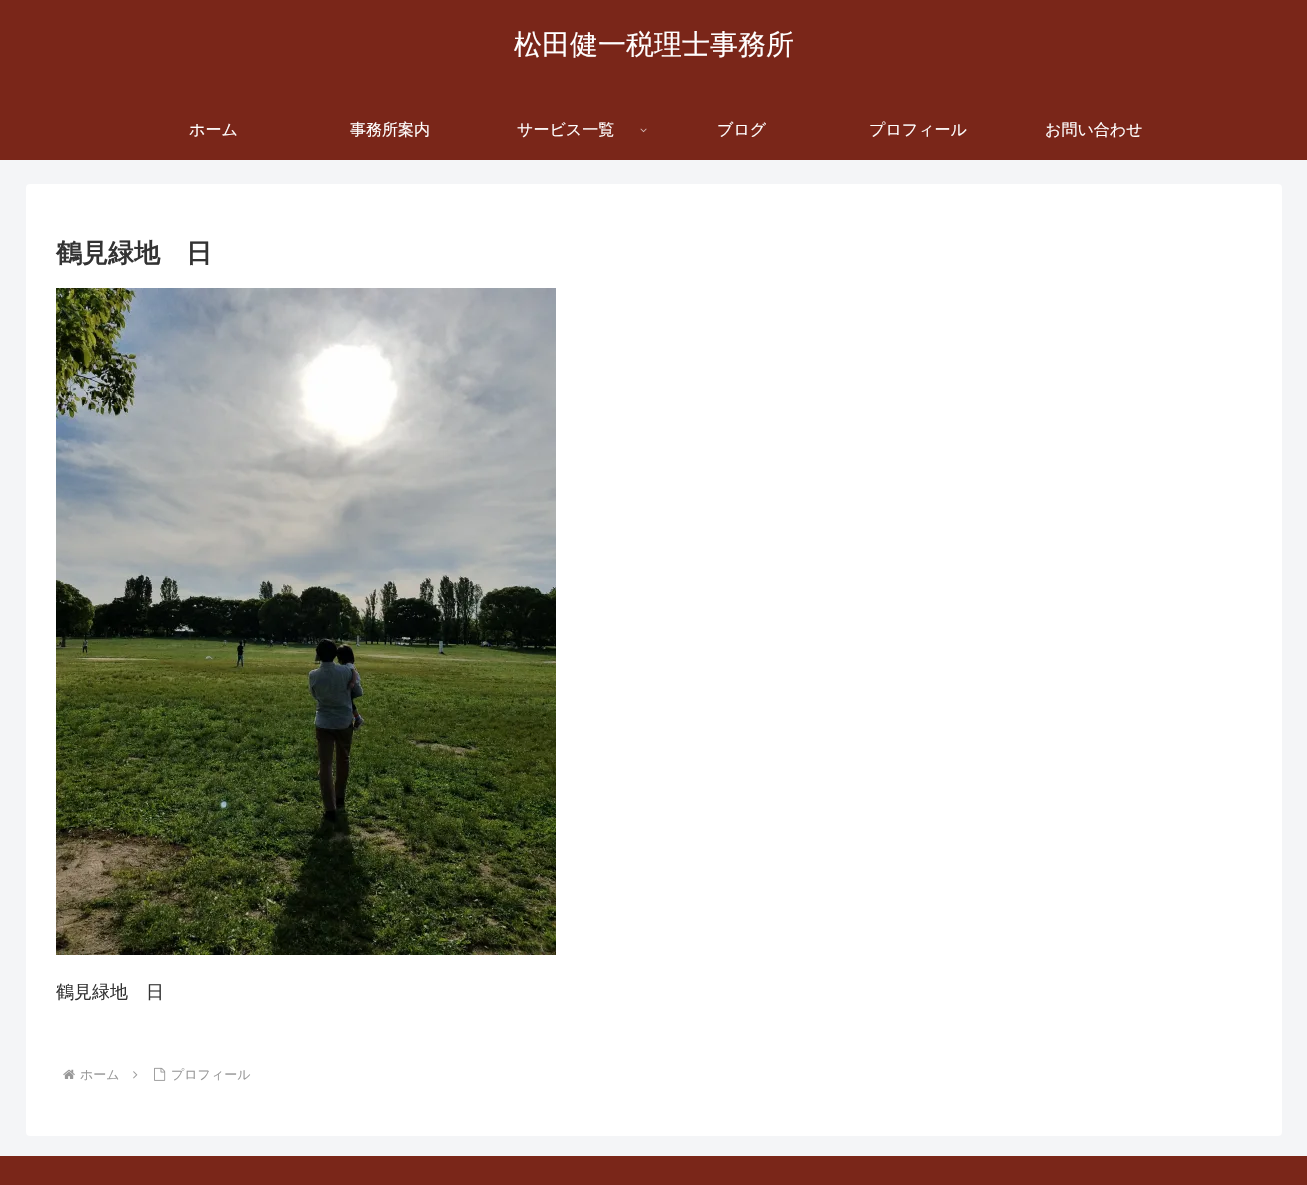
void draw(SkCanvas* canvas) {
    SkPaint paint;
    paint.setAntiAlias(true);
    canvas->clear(0xFFF4F5F7);
    paint.setColor(0xFF7A2619);
    canvas->drawRect(SkRect::MakeXYWH(0, 0, 1307, 160), paint);
    SkFont font1(fontMgr->matchFamilyStyle("WenQuanYi Zen Hei", SkFontStyle(500, SkFontStyle::kNormal_Width, SkFontStyle::kUpright_Slant)), 28);
    font1.setSubpixel(true);
    paint.setColor(0xFFFFFFFF);
    canvas->drawString("松田健一税理士事務所", 514, 54, font1, paint);
    SkFont font2(fontMgr->matchFamilyStyle("WenQuanYi Zen Hei", SkFontStyle(500, SkFontStyle::kNormal_Width, SkFontStyle::kUpright_Slant)), 16);
    font2.setSubpixel(true);
    canvas->drawString("ホーム", 189, 135, font2, paint);
    canvas->drawString("事務所案内", 350, 135, font2, paint);
    canvas->drawString("サービス一覧", 517, 135, font2, paint);
    canvas->drawImageRect(SkImages::DeferredFromEncodedData(SkData::MakeFromFileName("img1.png")), SkRect::MakeXYWH(640, 128, 7, 5), SkSamplingOptions());
    canvas->drawString("ブログ", 717, 135, font2, paint);
    canvas->drawString("プロフィール", 869, 135, font2, paint);
    canvas->drawString("お問い合わせ", 1045, 135, font2, paint);
    canvas->drawRoundRect(SkRect::MakeXYWH(26, 184, 1256, 952), 4, 4, paint);
    SkFont font3(fontMgr->matchFamilyStyle("WenQuanYi Zen Hei", SkFontStyle::Bold()), 26);
    font3.setSubpixel(true);
    paint.setColor(0xFF333333);
    canvas->drawString("鶴見緑地　日", 56, 262, font3, paint);
    canvas->drawImageRect(SkImages::DeferredFromEncodedData(SkData::MakeFromFileName("img2.png")), SkRect::MakeXYWH(56, 288, 500, 667), SkSamplingOptions());
    SkFont font4(fontMgr->matchFamilyStyle("WenQuanYi Zen Hei", SkFontStyle(500, SkFontStyle::kNormal_Width, SkFontStyle::kUpright_Slant)), 18);
    font4.setSubpixel(true);
    canvas->drawString("鶴見緑地　日", 56, 998, font4, paint);
    canvas->drawImageRect(SkImages::DeferredFromEncodedData(SkData::MakeFromFileName("img3.png")), SkRect::MakeXYWH(63, 1069, 12, 10), SkSamplingOptions());
    SkFont font5(fontMgr->matchFamilyStyle("WenQuanYi Zen Hei", SkFontStyle(500, SkFontStyle::kNormal_Width, SkFontStyle::kUpright_Slant)), 13);
    font5.setSubpixel(true);
    paint.setColor(0xFF999999);
    canvas->drawString("ホーム", 80, 1079, font5, paint);
    canvas->drawImageRect(SkImages::DeferredFromEncodedData(SkData::MakeFromFileName("img4.png")), SkRect::MakeXYWH(133, 1071, 5, 8), SkSamplingOptions());
    canvas->drawImageRect(SkImages::DeferredFromEncodedData(SkData::MakeFromFileName("img5.png")), SkRect::MakeXYWH(154, 1067, 12, 14), SkSamplingOptions());
    canvas->drawString("プロフィール", 171, 1079, font5, paint);
    paint.setColor(0xFF7A2619);
    canvas->drawRect(SkRect::MakeXYWH(0, 1156, 1307, 29), paint);
}
